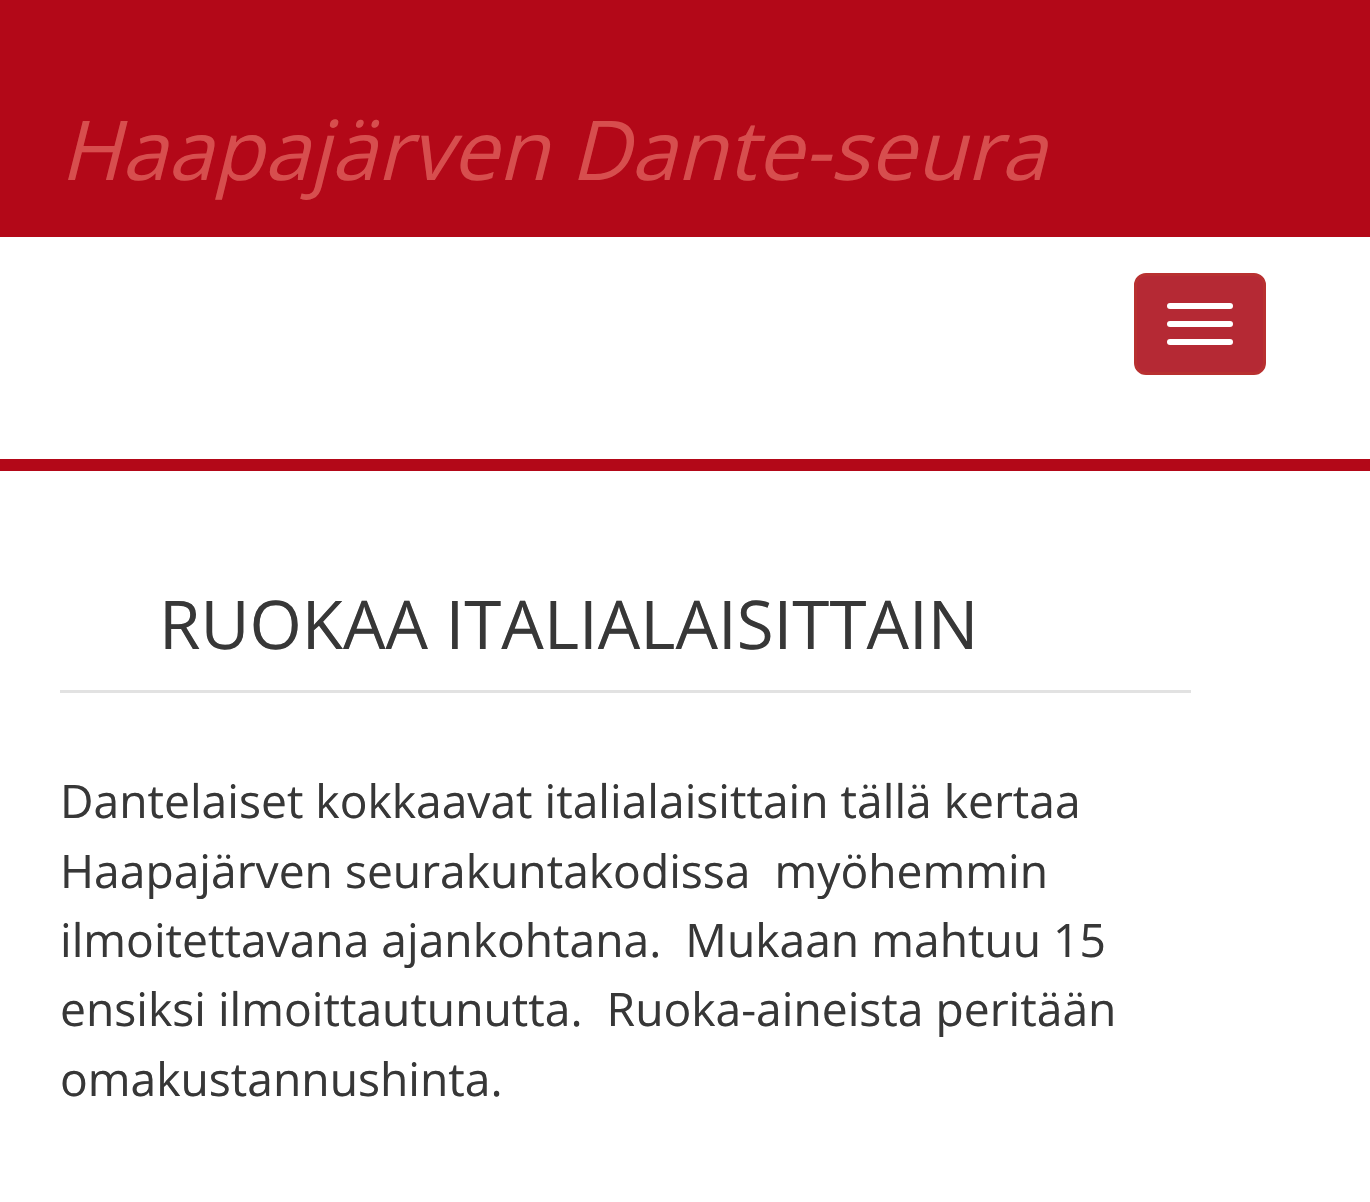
void draw(SkCanvas* canvas) {
    SkPaint paint;
    paint.setAntiAlias(true);
    canvas->clear(0xFFFFFFFF);
    paint.setColor(0xFFB30818);
    canvas->drawRect(SkRect::MakeXYWH(0, 0, 1370, 237), paint);
    SkFont font1(fontMgr->matchFamilyStyle("Open Sans", SkFontStyle::Italic()), 82.75f);
    font1.setSubpixel(true);
    paint.setColor(0xFFD74E4E);
    canvas->drawString("Haapajärven Dante-seura", 60, 180, font1, paint);
    paint.setColor(0xFFB30818);
    canvas->drawRect(SkRect::MakeXYWH(0, 459, 1370, 12), paint);
    paint.setColor(0xFFB52934);
    canvas->drawRoundRect(SkRect::MakeXYWH(1135.5f, 274.5f, 129, 99), 10.5f, 10.5f, paint);
    paint.setStyle(SkPaint::kStroke_Style);
    paint.setStrokeWidth(3);
    paint.setColor(0xFFB83030);
    canvas->drawRoundRect(SkRect::MakeXYWH(1135.5f, 274.5f, 129, 99), 10.5f, 10.5f, paint);
    paint.setStyle(SkPaint::kFill_Style);
    paint.setColor(0xFFFFFFFF);
    canvas->drawRoundRect(SkRect::MakeXYWH(1167, 303, 66, 6), 3, 3, paint);
    canvas->drawRoundRect(SkRect::MakeXYWH(1167, 321, 66, 6), 3, 3, paint);
    canvas->drawRoundRect(SkRect::MakeXYWH(1167, 339, 66, 6), 3, 3, paint);
    paint.setColor(0xFFE2E2E2);
    canvas->drawRect(SkRect::MakeXYWH(60, 690, 1131, 3), paint);
    SkFont font2(fontMgr->matchFamilyStyle("Open Sans", SkFontStyle::Normal()), 67.25f);
    font2.setSubpixel(true);
    paint.setColor(0xFF373737);
    canvas->drawString("RUOKAA ITALIALAISITTAIN", 159, 649, font2, paint);
    SkFont font3(fontMgr->matchFamilyStyle("Open Sans", SkFontStyle::Normal()), 46.2f);
    font3.setSubpixel(true);
    canvas->drawString("Dantelaiset kokkaavat italialaisittain tällä kertaa", 60, 818, font3, paint);
    canvas->drawString("Haapajärven seurakuntakodissa  myöhemmin", 60, 888, font3, paint);
    canvas->drawString("ilmoitettavana ajankohtana.  Mukaan mahtuu 15", 60, 957, font3, paint);
    canvas->drawString("ensiksi ilmoittautunutta.  Ruoka-aineista peritään", 60, 1026, font3, paint);
    canvas->drawString("omakustannushinta.", 60, 1096, font3, paint);
}
